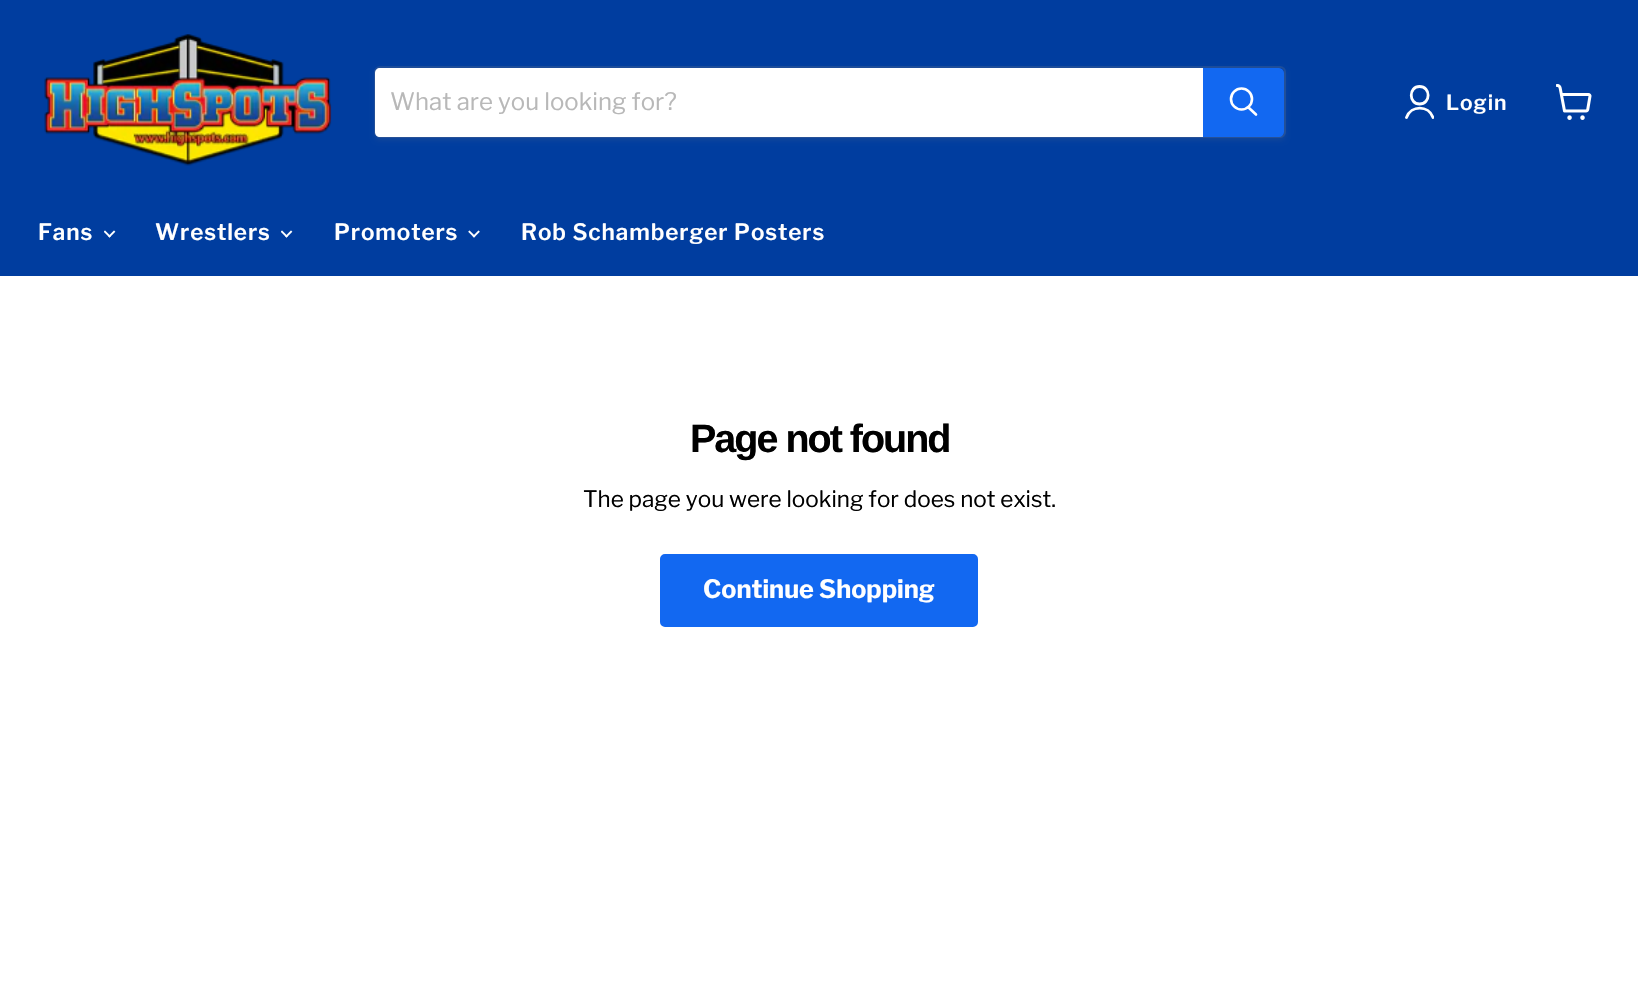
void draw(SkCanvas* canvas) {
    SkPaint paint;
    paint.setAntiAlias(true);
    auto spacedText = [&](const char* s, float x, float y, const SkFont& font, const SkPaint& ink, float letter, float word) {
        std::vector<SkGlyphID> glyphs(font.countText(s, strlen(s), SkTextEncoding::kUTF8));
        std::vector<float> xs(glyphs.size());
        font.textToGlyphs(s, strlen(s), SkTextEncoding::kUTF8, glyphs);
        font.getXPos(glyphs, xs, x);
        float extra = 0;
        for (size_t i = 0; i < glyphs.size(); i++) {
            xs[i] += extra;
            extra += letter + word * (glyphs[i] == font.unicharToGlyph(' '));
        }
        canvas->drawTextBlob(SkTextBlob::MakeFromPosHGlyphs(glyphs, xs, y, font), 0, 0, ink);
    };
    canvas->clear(0xFFFFFFFF);
    paint.setColor(0xFF003D9F);
    canvas->drawRect(SkRect::MakeXYWH(0, 0, 1638, 276), paint);
    canvas->drawImageRect(SkImages::DeferredFromEncodedData(SkData::MakeFromFileName("img1.png")), SkRect::MakeXYWH(44, 34, 288, 132), SkSamplingOptions());
    paint.setColor(0x1C808080);
    paint.setMaskFilter(SkMaskFilter::MakeBlur(kNormal_SkBlurStyle, 2));
    canvas->drawRoundRect(SkRect::MakeXYWH(374, 69, 912, 72), 6, 6, paint);
    paint.setMaskFilter(nullptr);
    paint.setStyle(SkPaint::kStroke_Style);
    paint.setStrokeWidth(2);
    paint.setColor(0x33808080);
    canvas->drawRoundRect(SkRect::MakeXYWH(375, 67, 910, 70), 5, 5, paint);
    paint.setStyle(SkPaint::kFill_Style);
    paint.setColor(0xFFFFFFFF);
    canvas->drawPath(SkPathBuilder().moveTo(380, 68).lineTo(1203, 68).lineTo(1203, 137).lineTo(380, 137).cubicTo(377, 137, 375, 135, 375, 132).lineTo(375, 73).cubicTo(375, 70, 377, 68, 380, 68).close().detach(), paint);
    SkFont font1(fontMgr->matchFamilyStyle("Libre Franklin", SkFontStyle::Normal()), 24);
    font1.setSubpixel(true);
    paint.setColor(0xFFB8B8B8);
    canvas->drawString("What are you looking for?", 390, 110, font1, paint);
    paint.setColor(0xFF1268F1);
    canvas->drawPath(SkPathBuilder().moveTo(1204, 69).lineTo(1279, 69).cubicTo(1281, 69, 1283, 71, 1283, 73).lineTo(1283, 132).cubicTo(1283, 134, 1281, 136, 1279, 136).lineTo(1204, 136).close().detach(), paint);
    paint.setStyle(SkPaint::kStroke_Style);
    canvas->drawPath(SkPathBuilder().moveTo(1204, 69).lineTo(1279, 69).cubicTo(1281, 69, 1283, 71, 1283, 73).lineTo(1283, 132).cubicTo(1283, 134, 1281, 136, 1279, 136).lineTo(1204, 136).close().detach(), paint);
    paint.setStrokeWidth(2.6f);
    paint.setStrokeCap(SkPaint::kRound_Cap);
    paint.setColor(0xFFFFFFFF);
    canvas->drawPath(SkPathBuilder().moveTo(1256, 114.5f).lineTo(1248.5f, 107.5f).detach(), paint);
    paint.setStrokeCap(SkPaint::kButt_Cap);
    canvas->drawCircle(1241.5f, 99, 10.5f, paint);
    paint.setStrokeWidth(2.8f);
    paint.setStrokeCap(SkPaint::kRound_Cap);
    paint.setStrokeJoin(SkPaint::kRound_Join);
    canvas->drawPath(SkPathBuilder().moveTo(1419.5f, 104).cubicTo(1431, 104, 1431, 86.5f, 1419.5f, 86.5f).cubicTo(1408.5f, 86.5f, 1408.5f, 104, 1419.5f, 104).close().detach(), paint);
    canvas->save();
    canvas->clipRect(SkRect::MakeXYWH(1404, 84, 30, 36));
    canvas->drawPath(SkPathBuilder().moveTo(1433, 117.5f).cubicTo(1428.5f, 105, 1411, 105, 1406.5f, 117.5f).detach(), paint);
    canvas->restore();
    SkFont font2(fontMgr->matchFamilyStyle("Libre Franklin", SkFontStyle(600, SkFontStyle::kNormal_Width, SkFontStyle::kUpright_Slant)), 21);
    font2.setSubpixel(true);
    paint.setStyle(SkPaint::kFill_Style);
    spacedText("Login", 1446, 110, font2, paint, 1, 0);
    canvas->drawImageRect(SkImages::DeferredFromEncodedData(SkData::MakeFromFileName("img2.png")), SkRect::MakeXYWH(1556, 84, 36, 36), SkSamplingOptions());
    SkFont font3(fontMgr->matchFamilyStyle("Libre Franklin", SkFontStyle(600, SkFontStyle::kNormal_Width, SkFontStyle::kUpright_Slant)), 22.5f);
    font3.setSubpixel(true);
    spacedText("Fans", 38, 240, font3, paint, 0.9f, 0);
    canvas->drawImageRect(SkImages::DeferredFromEncodedData(SkData::MakeFromFileName("img3.png")), SkRect::MakeXYWH(104, 230, 12, 8), SkSamplingOptions());
    spacedText("Wrestlers", 155, 240, font3, paint, 0.9f, 0);
    canvas->drawImageRect(SkImages::DeferredFromEncodedData(SkData::MakeFromFileName("img3.png")), SkRect::MakeXYWH(281, 230, 12, 8), SkSamplingOptions());
    spacedText("Promoters", 334, 240, font3, paint, 0.9f, 0);
    canvas->drawImageRect(SkImages::DeferredFromEncodedData(SkData::MakeFromFileName("img4.png")), SkRect::MakeXYWH(468, 230, 12, 8), SkSamplingOptions());
    spacedText("Rob Schamberger Posters", 521, 240, font3, paint, 0.9f, 0);
    SkFont font4(fontMgr->matchFamilyStyle("Arimo", SkFontStyle::Bold()), 39.5f);
    font4.setSubpixel(true);
    paint.setColor(0xFF000000);
    spacedText("Page not found", 690, 452, font4, paint, -2, 0);
    SkFont font5(fontMgr->matchFamilyStyle("Libre Franklin", SkFontStyle::Normal()), 22.5f);
    font5.setSubpixel(true);
    canvas->drawString("The page you were looking for does not exist.", 583, 507, font5, paint);
    paint.setColor(0xFF1268F1);
    canvas->drawRoundRect(SkRect::MakeXYWH(661, 555, 316, 71), 4, 4, paint);
    paint.setStyle(SkPaint::kStroke_Style);
    paint.setStrokeWidth(2);
    paint.setStrokeCap(SkPaint::kButt_Cap);
    paint.setStrokeJoin(SkPaint::kMiter_Join);
    canvas->drawRoundRect(SkRect::MakeXYWH(661, 555, 316, 71), 4, 4, paint);
    SkFont font6(fontMgr->matchFamilyStyle("Libre Franklin", SkFontStyle::Bold()), 25.25f);
    font6.setSubpixel(true);
    paint.setStyle(SkPaint::kFill_Style);
    paint.setColor(0xFFFFFFFF);
    canvas->drawString("Continue Shopping", 703, 598, font6, paint);
}
